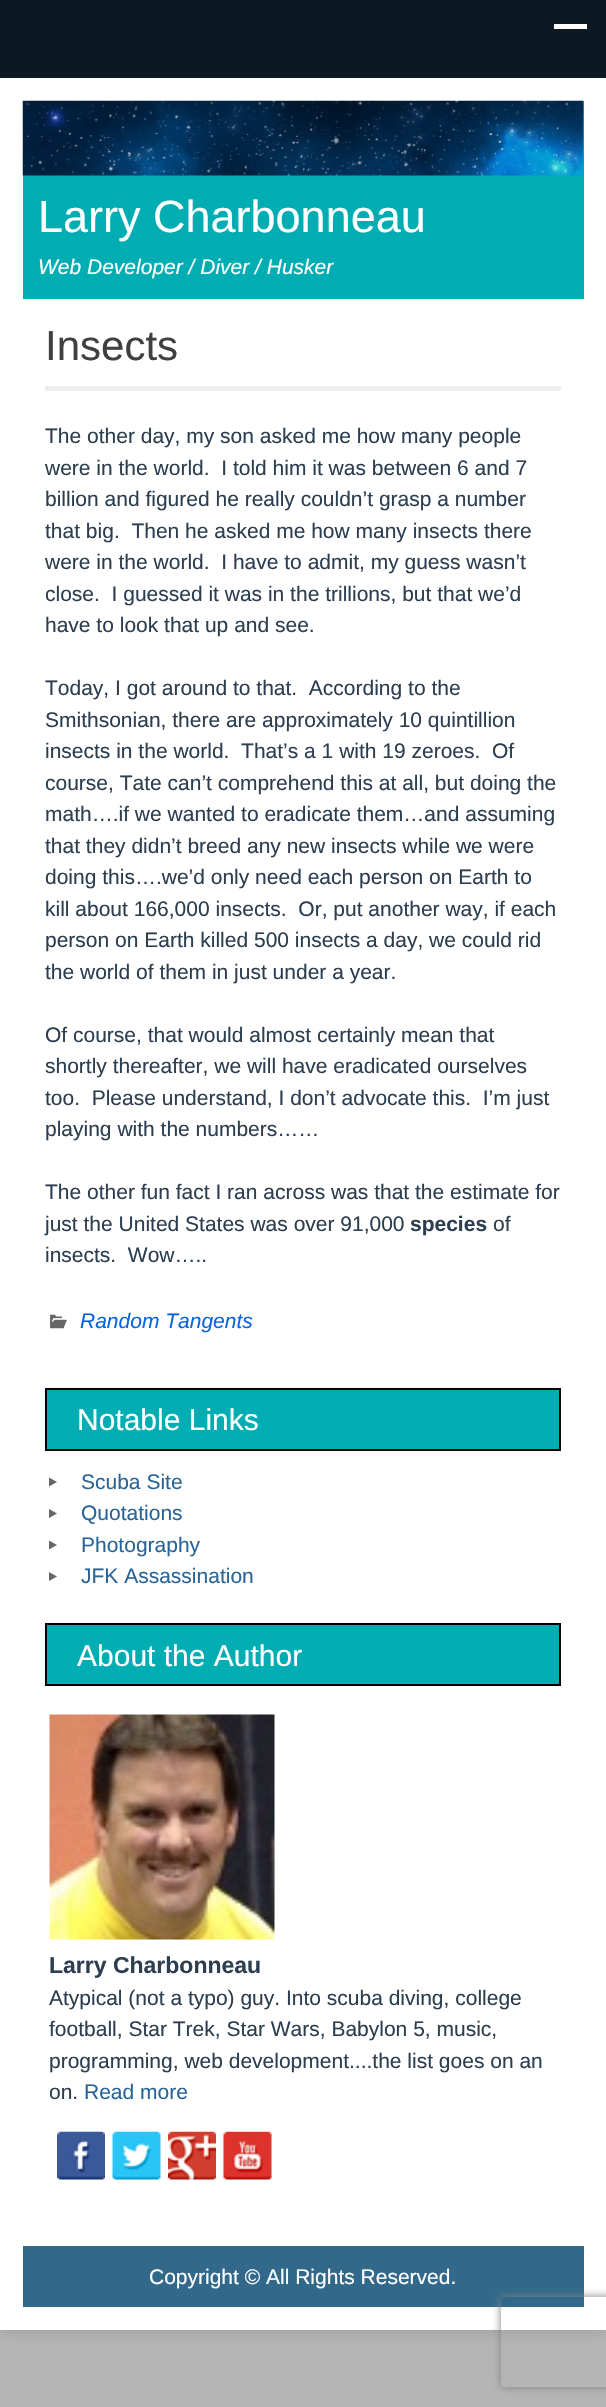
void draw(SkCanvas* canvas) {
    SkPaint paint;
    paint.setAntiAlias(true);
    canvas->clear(0xFFB5B5B5);
    paint.setColor(0xFF999999);
    paint.setMaskFilter(SkMaskFilter::MakeBlur(kNormal_SkBlurStyle, 7.5f));
    canvas->drawRect(SkRect::MakeXYWH(0, 78, 606, 2252), paint);
    paint.setMaskFilter(nullptr);
    paint.setColor(0xFF0C1923);
    canvas->drawRect(SkRect::MakeXYWH(0, 0, 606, 78), paint);
    paint.setColor(0xFFFFFFFF);
    canvas->drawRect(SkRect::MakeXYWH(554, 24, 33, 5), paint);
    canvas->drawRect(SkRect::MakeXYWH(0, 78, 606, 2252), paint);
    paint.setColor(0xFF00ADB3);
    canvas->drawRect(SkRect::MakeXYWH(23, 101, 561, 198), paint);
    canvas->drawImageRect(SkImages::DeferredFromEncodedData(SkData::MakeFromFileName("img1.png")), SkRect::MakeXYWH(22, 100, 562, 76), SkSamplingOptions());
    SkFont font1(fontMgr->matchFamilyStyle("Liberation Sans", SkFontStyle::Normal()), 45);
    font1.setSubpixel(true);
    paint.setColor(0xFFFFFFFF);
    canvas->drawString("Larry Charbonneau", 38, 232, font1, paint);
    SkFont font2(fontMgr->matchFamilyStyle("Liberation Sans", SkFontStyle::Italic()), 21);
    font2.setSubpixel(true);
    canvas->drawString("Web Developer / Diver / Husker", 38, 274, font2, paint);
    paint.setColor(0xFFEEEEEE);
    canvas->drawRect(SkRect::MakeXYWH(45, 386, 516, 5), paint);
    SkFont font3(fontMgr->matchFamilyStyle("Liberation Sans", SkFontStyle::Normal()), 42);
    font3.setSubpixel(true);
    paint.setColor(0xFF404040);
    canvas->drawString("Insects", 45, 360, font3, paint);
    SkFont font4(fontMgr->matchFamilyStyle("Liberation Sans", SkFontStyle::Normal()), 21);
    font4.setSubpixel(true);
    paint.setColor(0xFF2C3E50);
    canvas->drawString("The other day, my son asked me how many people", 45, 443, font4, paint);
    canvas->drawString("were in the world.  I told him it was between 6 and 7", 45, 475, font4, paint);
    canvas->drawString("billion and figured he really couldn’t grasp a number", 45, 506, font4, paint);
    canvas->drawString("that big.  Then he asked me how many insects there", 45, 538, font4, paint);
    canvas->drawString("were in the world.  I have to admit, my guess wasn’t", 45, 569, font4, paint);
    canvas->drawString("close.  I guessed it was in the trillions, but that we’d", 45, 601, font4, paint);
    canvas->drawString("have to look that up and see.", 45, 632, font4, paint);
    canvas->drawString("Today, I got around to that.  According to the", 45, 695, font4, paint);
    canvas->drawString("Smithsonian, there are approximately 10 quintillion", 45, 727, font4, paint);
    canvas->drawString("insects in the world.  That’s a 1 with 19 zeroes.  Of", 45, 758, font4, paint);
    canvas->drawString("course, Tate can’t comprehend this at all, but doing the", 45, 790, font4, paint);
    canvas->drawString("math….if we wanted to eradicate them…and assuming", 45, 821, font4, paint);
    canvas->drawString("that they didn’t breed any new insects while we were", 45, 853, font4, paint);
    canvas->drawString("doing this….we’d only need each person on Earth to", 45, 884, font4, paint);
    canvas->drawString("kill about 166,000 insects.  Or, put another way, if each", 45, 916, font4, paint);
    canvas->drawString("person on Earth killed 500 insects a day, we could rid", 45, 947, font4, paint);
    canvas->drawString("the world of them in just under a year.", 45, 979, font4, paint);
    canvas->drawString("Of course, that would almost certainly mean that", 45, 1042, font4, paint);
    canvas->drawString("shortly thereafter, we will have eradicated ourselves", 45, 1073, font4, paint);
    canvas->drawString("too.  Please understand, I don’t advocate this.  I’m just", 45, 1105, font4, paint);
    canvas->drawString("playing with the numbers……", 45, 1136, font4, paint);
    canvas->drawString("The other fun fact I ran across was that the estimate for", 45, 1199, font4, paint);
    canvas->drawString("just the United States was over 91,000", 45, 1231, font4, paint);
    SkFont font5(fontMgr->matchFamilyStyle("Liberation Sans", SkFontStyle::Bold()), 21);
    font5.setSubpixel(true);
    canvas->drawString("species", 410, 1231, font5, paint);
    canvas->drawString("of", 493, 1231, font4, paint);
    canvas->drawString("insects.  Wow…..", 45, 1262, font4, paint);
    canvas->drawImageRect(SkImages::DeferredFromEncodedData(SkData::MakeFromFileName("img2.png")), SkRect::MakeXYWH(50, 1314, 17, 15), SkSamplingOptions());
    paint.setColor(0xFF0A64DD);
    canvas->drawString("Random Tangents", 80, 1328, font2, paint);
    paint.setColor(0xFF00ADB3);
    canvas->drawRect(SkRect::MakeXYWH(46, 1389, 514, 61), paint);
    paint.setStyle(SkPaint::kStroke_Style);
    paint.setStrokeWidth(2);
    paint.setColor(0xFF000000);
    canvas->drawRect(SkRect::MakeXYWH(46, 1389, 514, 61), paint);
    SkFont font6(fontMgr->matchFamilyStyle("Liberation Sans", SkFontStyle::Normal()), 30);
    font6.setSubpixel(true);
    paint.setStyle(SkPaint::kFill_Style);
    paint.setColor(0xFFFFFFFF);
    canvas->drawString("Notable Links", 77, 1430, font6, paint);
    paint.setColor(0xFF666666);
    canvas->drawPath(SkPathBuilder().moveTo(49, 1477.5f).lineTo(57, 1482).lineTo(49, 1486.5f).close().detach(), paint);
    paint.setColor(0xFF2A6496);
    canvas->drawString("Scuba Site", 81, 1489, font4, paint);
    paint.setColor(0xFF666666);
    canvas->drawPath(SkPathBuilder().moveTo(49, 1509).lineTo(57, 1513.5f).lineTo(49, 1518).close().detach(), paint);
    paint.setColor(0xFF2A6496);
    canvas->drawString("Quotations", 81, 1520, font4, paint);
    paint.setColor(0xFF666666);
    canvas->drawPath(SkPathBuilder().moveTo(49, 1540.5f).lineTo(57, 1545).lineTo(49, 1549.5f).close().detach(), paint);
    paint.setColor(0xFF2A6496);
    canvas->drawString("Photography", 81, 1552, font4, paint);
    paint.setColor(0xFF666666);
    canvas->drawPath(SkPathBuilder().moveTo(49, 1572).lineTo(57, 1576.5f).lineTo(49, 1581).close().detach(), paint);
    paint.setColor(0xFF2A6496);
    canvas->drawString("JFK Assassination", 81, 1583, font4, paint);
    paint.setColor(0xFF00ADB3);
    canvas->drawRect(SkRect::MakeXYWH(46, 1624, 514, 61), paint);
    paint.setStyle(SkPaint::kStroke_Style);
    paint.setColor(0xFF000000);
    canvas->drawRect(SkRect::MakeXYWH(46, 1624, 514, 61), paint);
    paint.setStyle(SkPaint::kFill_Style);
    paint.setColor(0xFFFFFFFF);
    canvas->drawString("About the Author", 77, 1666, font6, paint);
    canvas->drawImageRect(SkImages::DeferredFromEncodedData(SkData::MakeFromFileName("img3.png")), SkRect::MakeXYWH(49, 1714, 226, 226), SkSamplingOptions());
    SkFont font7(fontMgr->matchFamilyStyle("Liberation Sans", SkFontStyle::Bold()), 23);
    font7.setSubpixel(true);
    paint.setColor(0xFF2C3E50);
    canvas->drawString("Larry Charbonneau", 49, 1973, font7, paint);
    canvas->drawString("Atypical (not a typo) guy. Into scuba diving, college", 49, 2005, font4, paint);
    canvas->drawString("football, Star Trek, Star Wars, Babylon 5, music,", 49, 2036, font4, paint);
    canvas->drawString("programming, web development....the list goes on an", 49, 2068, font4, paint);
    canvas->drawString("on.", 49, 2099, font4, paint);
    paint.setColor(0xFF2A6496);
    canvas->drawString("Read more", 84, 2099, font4, paint);
    canvas->drawImageRect(SkImages::DeferredFromEncodedData(SkData::MakeFromFileName("img4.png")), SkRect::MakeXYWH(57, 2131, 48, 49), SkSamplingOptions());
    canvas->drawImageRect(SkImages::DeferredFromEncodedData(SkData::MakeFromFileName("img5.png")), SkRect::MakeXYWH(112, 2131, 49, 49), SkSamplingOptions());
    canvas->drawImageRect(SkImages::DeferredFromEncodedData(SkData::MakeFromFileName("img6.png")), SkRect::MakeXYWH(168, 2131, 48, 49), SkSamplingOptions());
    canvas->drawImageRect(SkImages::DeferredFromEncodedData(SkData::MakeFromFileName("img7.png")), SkRect::MakeXYWH(223, 2131, 49, 49), SkSamplingOptions());
    paint.setColor(0xFF32698B);
    canvas->drawRect(SkRect::MakeXYWH(23, 2246, 561, 61), paint);
    paint.setColor(0xFFFFFFFF);
    canvas->drawString("Copyright © All Rights Reserved.", 149, 2284, font4, paint);
    canvas->save();
    canvas->clipPath(SkPathBuilder(SkPathFillType::kEvenOdd).moveTo(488, 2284).lineTo(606, 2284).lineTo(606, 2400).lineTo(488, 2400).close().moveTo(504, 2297).lineTo(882, 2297).cubicTo(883.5f, 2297, 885, 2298.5f, 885, 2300).lineTo(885, 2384).cubicTo(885, 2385.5f, 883.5f, 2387, 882, 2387).lineTo(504, 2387).cubicTo(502.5f, 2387, 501, 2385.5f, 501, 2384).lineTo(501, 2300).cubicTo(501, 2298.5f, 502.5f, 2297, 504, 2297).close().detach(), true);
    paint.setColor(0xFF808080);
    paint.setMaskFilter(SkMaskFilter::MakeBlur(kNormal_SkBlurStyle, 4));
    canvas->drawRoundRect(SkRect::MakeXYWH(501, 2297, 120, 90), 3, 3, paint);
    paint.setMaskFilter(nullptr);
    canvas->restore();
}
